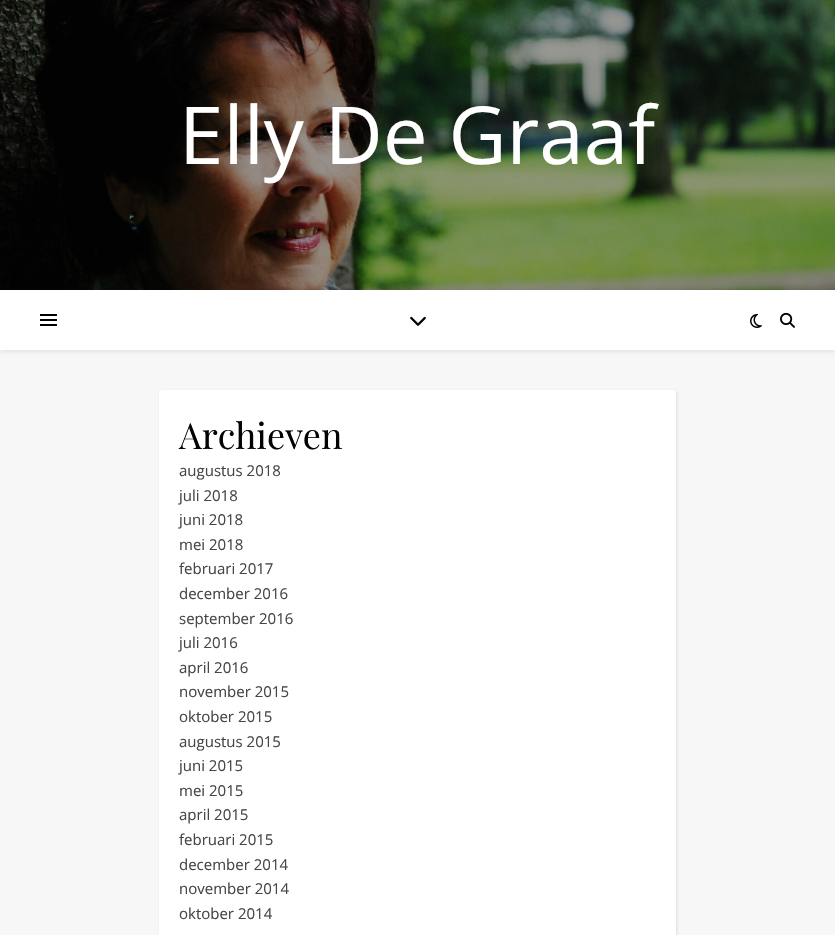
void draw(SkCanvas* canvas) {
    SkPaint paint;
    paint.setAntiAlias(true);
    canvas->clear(0xFFF7F7F7);
    canvas->drawImageRect(SkImages::DeferredFromEncodedData(SkData::MakeFromFileName("img1.png")), SkRect::MakeXYWH(0, 0, 835, 290), SkSamplingOptions());
    SkFont font1(fontMgr->matchFamilyStyle("Open Sans", SkFontStyle::Normal()), 80);
    font1.setSubpixel(true);
    paint.setColor(0xFFFFFFFF);
    canvas->drawString("Elly De Graaf", 179, 164, font1, paint);
    paint.setColor(0x1A000000);
    paint.setMaskFilter(SkMaskFilter::MakeBlur(kNormal_SkBlurStyle, 2.5f));
    canvas->drawRect(SkRect::MakeXYWH(0, 291, 835, 60), paint);
    paint.setMaskFilter(nullptr);
    paint.setColor(0xFFFFFFFF);
    canvas->drawRect(SkRect::MakeXYWH(0, 290, 835, 60), paint);
    paint.setColor(0xFF000000);
    canvas->drawRect(SkRect::MakeXYWH(40, 314, 17, 2), paint);
    canvas->drawRect(SkRect::MakeXYWH(40, 319, 17, 2), paint);
    canvas->drawRect(SkRect::MakeXYWH(40, 324, 17, 2), paint);
    canvas->drawImageRect(SkImages::DeferredFromEncodedData(SkData::MakeFromFileName("img2.png")), SkRect::MakeXYWH(410, 316, 16, 10), SkSamplingOptions());
    canvas->drawImageRect(SkImages::DeferredFromEncodedData(SkData::MakeFromFileName("img3.png")), SkRect::MakeXYWH(750, 314, 12, 14), SkSamplingOptions());
    canvas->drawImageRect(SkImages::DeferredFromEncodedData(SkData::MakeFromFileName("img4.png")), SkRect::MakeXYWH(780, 312, 15, 16), SkSamplingOptions());
    paint.setColor(0x1A000000);
    paint.setMaskFilter(SkMaskFilter::MakeBlur(kNormal_SkBlurStyle, 1.5f));
    canvas->drawRoundRect(SkRect::MakeXYWH(160, 391, 517, 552), 3, 3, paint);
    paint.setMaskFilter(nullptr);
    paint.setColor(0xFFFFFFFF);
    canvas->drawRoundRect(SkRect::MakeXYWH(159, 390, 517, 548), 3, 3, paint);
    SkFont font2(fontMgr->matchFamilyStyle("Playfair Display", SkFontStyle::Normal()), 36);
    font2.setSubpixel(true);
    paint.setColor(0xFF030303);
    canvas->drawString("Archieven", 179, 449, font2, paint);
    SkFont font3(fontMgr->matchFamilyStyle("Open Sans", SkFontStyle::Normal()), 15);
    font3.setSubpixel(true);
    paint.setColor(0xFF464646);
    canvas->drawString("augustus 2018", 179, 476, font3, paint);
    canvas->drawString("juli 2018", 179, 501, font3, paint);
    canvas->drawString("juni 2018", 179, 525, font3, paint);
    canvas->drawString("mei 2018", 179, 550, font3, paint);
    canvas->drawString("februari 2017", 179, 574, font3, paint);
    canvas->drawString("december 2016", 179, 599, font3, paint);
    canvas->drawString("september 2016", 179, 624, font3, paint);
    canvas->drawString("juli 2016", 179, 648, font3, paint);
    canvas->drawString("april 2016", 179, 673, font3, paint);
    canvas->drawString("november 2015", 179, 697, font3, paint);
    canvas->drawString("oktober 2015", 179, 722, font3, paint);
    canvas->drawString("augustus 2015", 179, 747, font3, paint);
    canvas->drawString("juni 2015", 179, 771, font3, paint);
    canvas->drawString("mei 2015", 179, 796, font3, paint);
    canvas->drawString("april 2015", 179, 820, font3, paint);
    canvas->drawString("februari 2015", 179, 845, font3, paint);
    canvas->drawString("december 2014", 179, 870, font3, paint);
    canvas->drawString("november 2014", 179, 894, font3, paint);
    canvas->drawString("oktober 2014", 179, 919, font3, paint);
}
